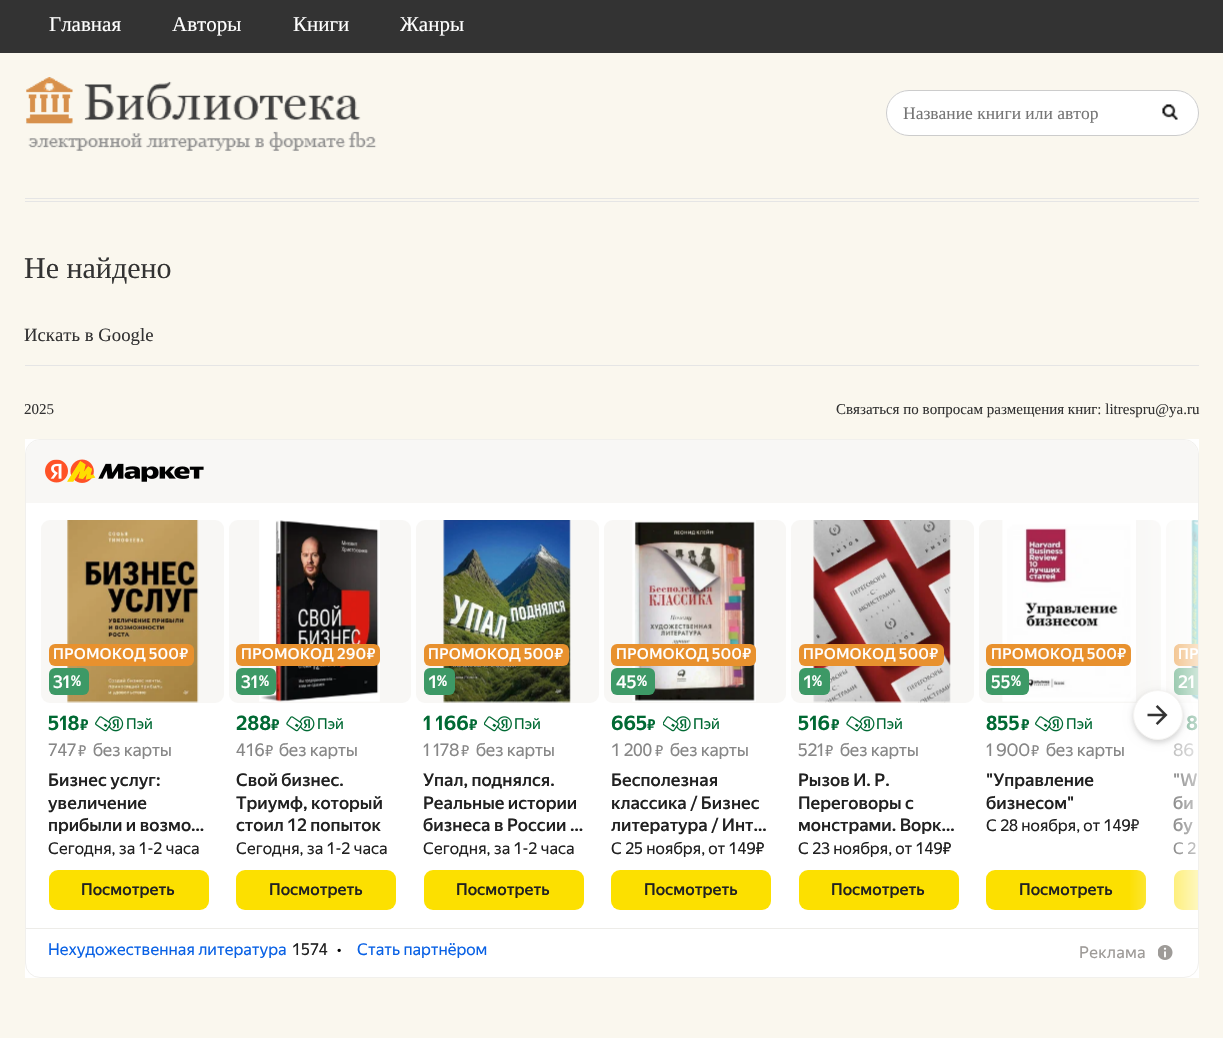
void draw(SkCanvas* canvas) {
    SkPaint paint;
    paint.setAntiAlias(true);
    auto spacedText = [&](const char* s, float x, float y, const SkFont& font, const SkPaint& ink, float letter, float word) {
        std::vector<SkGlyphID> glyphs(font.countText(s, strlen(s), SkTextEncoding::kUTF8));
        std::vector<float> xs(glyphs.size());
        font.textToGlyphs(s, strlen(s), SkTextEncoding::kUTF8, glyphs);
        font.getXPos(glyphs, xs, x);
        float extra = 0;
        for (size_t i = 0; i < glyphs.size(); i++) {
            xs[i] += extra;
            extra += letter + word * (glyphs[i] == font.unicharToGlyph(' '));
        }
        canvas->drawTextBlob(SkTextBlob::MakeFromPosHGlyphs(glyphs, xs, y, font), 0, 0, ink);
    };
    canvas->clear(0xFFFAF7EE);
    paint.setColor(0xFF333333);
    canvas->drawRect(SkRect::MakeXYWH(0, 0, 1223, 53), paint);
    SkFont font1(fontMgr->matchFamilyStyle("Liberation Serif", SkFontStyle::Normal()), 21);
    font1.setSubpixel(true);
    paint.setColor(0xFFFFFFFF);
    canvas->drawString("Главная", 49, 31, font1, paint);
    canvas->drawString("Авторы", 172, 31, font1, paint);
    canvas->drawString("Книги", 293, 31, font1, paint);
    canvas->drawString("Жанры", 400, 31, font1, paint);
    paint.setColor(0xFFE5E5E5);
    canvas->drawRect(SkRect::MakeXYWH(25, 198, 1174, 1), paint);
    canvas->drawRect(SkRect::MakeXYWH(25, 201, 1174, 1), paint);
    canvas->drawImageRect(SkImages::DeferredFromEncodedData(SkData::MakeFromFileName("img1.png")), SkRect::MakeXYWH(26, 77, 351, 74), SkSamplingOptions());
    paint.setColor(0xFFFFFFFF);
    canvas->drawRoundRect(SkRect::MakeXYWH(886, 90, 313, 46), 23, 23, paint);
    canvas->drawImageRect(SkImages::DeferredFromEncodedData(SkData::MakeFromFileName("img2.png")), SkRect::MakeXYWH(1162, 104, 16, 16), SkSamplingOptions());
    paint.setStyle(SkPaint::kStroke_Style);
    paint.setStrokeWidth(1);
    paint.setColor(0xFFCCCCCC);
    canvas->drawRoundRect(SkRect::MakeXYWH(886.5f, 90.5f, 312, 45), 22.5f, 22.5f, paint);
    SkFont font2(fontMgr->matchFamilyStyle("Liberation Serif", SkFontStyle::Normal()), 17.5f);
    font2.setSubpixel(true);
    paint.setStyle(SkPaint::kFill_Style);
    paint.setColor(0xFF757575);
    canvas->drawString("Название книги или автор", 903, 119, font2, paint);
    paint.setColor(0xFFE5E5E5);
    canvas->drawRect(SkRect::MakeXYWH(25, 365, 1174, 1), paint);
    SkFont font3(fontMgr->matchFamilyStyle("Liberation Serif", SkFontStyle::Normal()), 30);
    font3.setSubpixel(true);
    paint.setColor(0xFF333333);
    canvas->drawString("Не найдено", 24, 278, font3, paint);
    SkFont font4(fontMgr->matchFamilyStyle("Liberation Serif", SkFontStyle::Normal()), 18.75f);
    font4.setSubpixel(true);
    canvas->drawString("Искать в Google", 24, 341, font4, paint);
    SkFont font5(fontMgr->matchFamilyStyle("Liberation Serif", SkFontStyle::Normal()), 15);
    font5.setSubpixel(true);
    canvas->drawString("2025", 24, 414, font5, paint);
    canvas->drawString("Связаться по вопросам размещения книг: litrespru@ya.ru", 836, 414, font5, paint);
    paint.setColor(0xFFFFFFFF);
    canvas->drawRect(SkRect::MakeXYWH(25, 439, 1174, 539), paint);
    paint.setStyle(SkPaint::kStroke_Style);
    paint.setColor(0xFFF1F0ED);
    canvas->drawRoundRect(SkRect::MakeXYWH(25.5f, 439.5f, 1173, 538), 14.5f, 14.5f, paint);
    paint.setStyle(SkPaint::kFill_Style);
    paint.setColor(0xFFF8F7F5);
    canvas->drawPath(SkPathBuilder().moveTo(40, 440).lineTo(1184, 440).cubicTo(1191.5f, 440, 1198, 446.5f, 1198, 454).lineTo(1198, 503).lineTo(26, 503).lineTo(26, 454).cubicTo(26, 446.5f, 32.5f, 440, 40, 440).close().detach(), paint);
    canvas->drawImageRect(SkImages::DeferredFromEncodedData(SkData::MakeFromFileName("img3.png")), SkRect::MakeXYWH(45, 459, 159, 24), SkSamplingOptions());
    canvas->drawRoundRect(SkRect::MakeXYWH(979, 520, 182, 183), 9, 9, paint);
    canvas->drawImageRect(SkImages::DeferredFromEncodedData(SkData::MakeFromFileName("img13.png")), SkRect::MakeXYWH(1002, 520, 134, 182), SkSamplingOptions());
    paint.setColor(0xFFE8912E);
    canvas->drawRoundRect(SkRect::MakeXYWH(986, 644, 145, 22), 6, 6, paint);
    SkFont font6(fontMgr->matchFamilyStyle("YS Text", SkFontStyle::Normal()), 16.25f);
    font6.setSubpixel(true);
    paint.setColor(0xFF212121);
    canvas->drawString("С 28 ноября, от 149₽", 986, 831, font6, paint);
    paint.setColor(0xFFFCE000);
    canvas->drawRoundRect(SkRect::MakeXYWH(986, 870, 160, 40), 9, 9, paint);
    paint.setColor(0xFFF8F7F5);
    canvas->drawPath(SkPathBuilder().moveTo(1175, 520).lineTo(1198, 520).lineTo(1198, 703).lineTo(1175, 703).cubicTo(1170, 703, 1166, 699, 1166, 694).lineTo(1166, 529).cubicTo(1166, 524, 1170, 520, 1175, 520).close().detach(), paint);
    canvas->drawImageRect(SkImages::DeferredFromEncodedData(SkData::MakeFromFileName("img14.png")), SkRect::MakeXYWH(1191, 520, 7, 182), SkSamplingOptions());
    paint.setColor(0xFFE8912E);
    canvas->drawPath(SkPathBuilder().moveTo(1180, 644).lineTo(1198, 644).lineTo(1198, 666).lineTo(1180, 666).cubicTo(1176.5f, 666, 1174, 663.5f, 1174, 660).lineTo(1174, 650).cubicTo(1174, 646.5f, 1176.5f, 644, 1180, 644).close().detach(), paint);
    SkFont font7(fontMgr->matchFamilyStyle("YS Text", SkFontStyle(500, SkFontStyle::kNormal_Width, SkFontStyle::kUpright_Slant)), 15);
    font7.setSubpixel(true);
    paint.setColor(0xFFFFFFFF);
    spacedText("ПР", 1178, 659, font7, paint, 0.5f, 0);
    paint.setColor(0xFF3D9966);
    canvas->drawPath(SkPathBuilder().moveTo(1180, 668).lineTo(1198, 668).lineTo(1198, 695).lineTo(1180, 695).cubicTo(1176.5f, 695, 1174, 692.5f, 1174, 689).lineTo(1174, 674).cubicTo(1174, 670.5f, 1176.5f, 668, 1180, 668).close().detach(), paint);
    SkFont font8(fontMgr->matchFamilyStyle("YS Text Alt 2", SkFontStyle(500, SkFontStyle::kNormal_Width, SkFontStyle::kUpright_Slant)), 17.5f);
    font8.setSubpixel(true);
    paint.setColor(0xFFFFFFFF);
    canvas->drawString("21", 1178, 688, font8, paint);
    SkFont font9(fontMgr->matchFamilyStyle("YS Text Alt", SkFontStyle::Bold()), 20);
    font9.setSubpixel(true);
    paint.setColor(0xFF006933);
    canvas->drawString("8", 1186, 730, font9, paint);
    SkFont font10(fontMgr->matchFamilyStyle("YS Text Alt", SkFontStyle::Normal()), 17.5f);
    font10.setSubpixel(true);
    paint.setColor(0xFF878787);
    spacedText("86", 1173, 756, font10, paint, -0.25f, 0);
    SkFont font11(fontMgr->matchFamilyStyle("YS Text", SkFontStyle(500, SkFontStyle::kNormal_Width, SkFontStyle::kUpright_Slant)), 17.5f);
    font11.setSubpixel(true);
    paint.setColor(0xFF212121);
    canvas->drawString("\"W", 1173, 786, font11, paint);
    canvas->drawString("би", 1173, 809, font11, paint);
    canvas->drawString("бу", 1173, 831, font11, paint);
    canvas->drawString("С 2", 1173, 854, font6, paint);
    paint.setColor(0xFFFCE000);
    canvas->drawPath(SkPathBuilder().moveTo(1183, 870).lineTo(1198, 870).lineTo(1198, 910).lineTo(1183, 910).cubicTo(1178, 910, 1174, 906, 1174, 901).lineTo(1174, 879).cubicTo(1174, 874, 1178, 870, 1183, 870).close().detach(), paint);
    {
        const SkColor colors[] = {0xCCFFFFFF, 0x00FFFFFF};
        const float stops[] = {0, 1};
        const SkPoint ends[] = {{1203, 715}, {1128, 715}};
        paint.setShader(SkGradientShader::MakeLinear(ends, colors, stops, 2, SkTileMode::kClamp));
        paint.setAlpha(255);
    }
    canvas->drawRect(SkRect::MakeXYWH(1130, 520, 68, 390), paint);
    paint.setShader(nullptr);
    paint.setColor(0xFFF8F7F5);
    canvas->drawRoundRect(SkRect::MakeXYWH(41, 520, 183, 183), 9, 9, paint);
    canvas->drawImageRect(SkImages::DeferredFromEncodedData(SkData::MakeFromFileName("img4.png")), SkRect::MakeXYWH(67, 520, 132, 183), SkSamplingOptions());
    paint.setColor(0xFFE8912E);
    canvas->drawRoundRect(SkRect::MakeXYWH(49, 644, 145, 22), 6, 6, paint);
    paint.setColor(0xFFFFFFFF);
    spacedText("ПРОМОКОД", 53, 659, font7, paint, 0.5f, 0);
    SkFont font12(fontMgr->matchFamilyStyle("YS Text Alt", SkFontStyle(500, SkFontStyle::kNormal_Width, SkFontStyle::kUpright_Slant)), 15);
    font12.setSubpixel(true);
    spacedText("500₽", 149, 659, font12, paint, 0.5f, 0);
    paint.setColor(0xFF3D9966);
    canvas->drawRoundRect(SkRect::MakeXYWH(49, 668, 40, 27), 6, 6, paint);
    paint.setColor(0xFFFFFFFF);
    canvas->drawString("31", 53, 688, font8, paint);
    canvas->drawString("%", 71, 686, font7, paint);
    paint.setColor(0xFF006933);
    canvas->drawString("518", 48, 730, font9, paint);
    SkFont font13(fontMgr->matchFamilyStyle("YS Text", SkFontStyle::Bold()), 15);
    font13.setSubpixel(true);
    canvas->drawString("₽", 80, 730, font13, paint);
    canvas->drawImageRect(SkImages::DeferredFromEncodedData(SkData::MakeFromFileName("img5.png")), SkRect::MakeXYWH(95, 716, 29, 16), SkSamplingOptions());
    SkFont font14(fontMgr->matchFamilyStyle("YS Text", SkFontStyle::Normal()), 15);
    font14.setSubpixel(true);
    canvas->drawString("Пэй", 126, 729, font14, paint);
    SkFont font15(fontMgr->matchFamilyStyle("YS Text", SkFontStyle::Normal()), 17.5f);
    font15.setSubpixel(true);
    paint.setColor(0xFF878787);
    spacedText("747", 48, 756, font15, paint, -0.25f, 0);
    spacedText("₽", 78, 756, font14, paint, -0.25f, 0);
    spacedText("без карты", 93, 756, font15, paint, -0.25f, 0);
    paint.setColor(0xFF212121);
    canvas->drawString("Бизнес услуг:", 48, 786, font11, paint);
    canvas->drawString("увеличение", 48, 809, font11, paint);
    canvas->drawString("прибыли и возмо…", 48, 831, font11, paint);
    canvas->drawString("Сегодня, за 1-2 часа", 48, 854, font6, paint);
    paint.setColor(0xFFFCE000);
    canvas->drawRoundRect(SkRect::MakeXYWH(49, 870, 160, 40), 9, 9, paint);
    SkFont font16(fontMgr->matchFamilyStyle("YS Text", SkFontStyle(500, SkFontStyle::kNormal_Width, SkFontStyle::kUpright_Slant)), 16.25f);
    font16.setSubpixel(true);
    paint.setColor(0xFF212121);
    canvas->drawString("Посмотреть", 81, 895, font16, paint);
    paint.setColor(0xFFF8F7F5);
    canvas->drawRoundRect(SkRect::MakeXYWH(229, 520, 182, 183), 9, 9, paint);
    canvas->drawImageRect(SkImages::DeferredFromEncodedData(SkData::MakeFromFileName("img6.png")), SkRect::MakeXYWH(259, 520, 121, 182), SkSamplingOptions());
    paint.setColor(0xFFE8912E);
    canvas->drawRoundRect(SkRect::MakeXYWH(236, 644, 144, 22), 6, 6, paint);
    paint.setColor(0xFFFFFFFF);
    spacedText("ПРОМОКОД", 241, 659, font7, paint, 0.5f, 0);
    spacedText("290₽", 337, 659, font12, paint, 0.5f, 0);
    paint.setColor(0xFF3D9966);
    canvas->drawRoundRect(SkRect::MakeXYWH(236, 668, 40, 27), 6, 6, paint);
    paint.setColor(0xFFFFFFFF);
    canvas->drawString("31", 241, 688, font8, paint);
    canvas->drawString("%", 259, 686, font7, paint);
    paint.setColor(0xFF006933);
    canvas->drawString("288", 236, 730, font9, paint);
    canvas->drawString("₽", 271, 730, font13, paint);
    canvas->drawImageRect(SkImages::DeferredFromEncodedData(SkData::MakeFromFileName("img7.png")), SkRect::MakeXYWH(286, 716, 29, 16), SkSamplingOptions());
    canvas->drawString("Пэй", 317, 729, font14, paint);
    paint.setColor(0xFF878787);
    spacedText("416", 236, 756, font15, paint, -0.25f, 0);
    spacedText("₽", 265, 756, font14, paint, -0.25f, 0);
    spacedText("без карты", 279, 756, font15, paint, -0.25f, 0);
    paint.setColor(0xFF212121);
    canvas->drawString("Свой бизнес.", 236, 786, font11, paint);
    canvas->drawString("Триумф, который", 236, 809, font11, paint);
    canvas->drawString("стоил 12 попыток", 236, 831, font11, paint);
    canvas->drawString("Сегодня, за 1-2 часа", 236, 854, font6, paint);
    paint.setColor(0xFFFCE000);
    canvas->drawRoundRect(SkRect::MakeXYWH(236, 870, 160, 40), 9, 9, paint);
    paint.setColor(0xFF212121);
    canvas->drawString("Посмотреть", 269, 895, font16, paint);
    paint.setColor(0xFFF8F7F5);
    canvas->drawRoundRect(SkRect::MakeXYWH(416, 520, 183, 183), 9, 9, paint);
    canvas->drawImageRect(SkImages::DeferredFromEncodedData(SkData::MakeFromFileName("img8.png")), SkRect::MakeXYWH(443, 520, 128, 183), SkSamplingOptions());
    paint.setColor(0xFFE8912E);
    canvas->drawRoundRect(SkRect::MakeXYWH(424, 644, 145, 22), 6, 6, paint);
    paint.setColor(0xFFFFFFFF);
    spacedText("ПРОМОКОД", 428, 659, font7, paint, 0.5f, 0);
    spacedText("500₽", 524, 659, font12, paint, 0.5f, 0);
    paint.setColor(0xFF3D9966);
    canvas->drawRoundRect(SkRect::MakeXYWH(424, 668, 31, 27), 6, 6, paint);
    paint.setColor(0xFFFFFFFF);
    canvas->drawString("1", 428, 688, font11, paint);
    canvas->drawString("%", 437, 686, font7, paint);
    paint.setColor(0xFF006933);
    canvas->drawString("1 166", 423, 730, font9, paint);
    canvas->drawString("₽", 469, 730, font13, paint);
    canvas->drawImageRect(SkImages::DeferredFromEncodedData(SkData::MakeFromFileName("img9.png")), SkRect::MakeXYWH(484, 716, 28, 16), SkSamplingOptions());
    canvas->drawString("Пэй", 514, 729, font14, paint);
    paint.setColor(0xFF878787);
    spacedText("1 178", 423, 756, font10, paint, -0.25f, 0);
    spacedText("₽", 461, 756, font14, paint, -0.25f, 0);
    spacedText("без карты", 476, 756, font15, paint, -0.25f, 0);
    paint.setColor(0xFF212121);
    canvas->drawString("Упал, поднялся.", 423, 786, font11, paint);
    canvas->drawString("Реальные истории", 423, 809, font11, paint);
    canvas->drawString("бизнеса в России …", 423, 831, font11, paint);
    canvas->drawString("Сегодня, за 1-2 часа", 423, 854, font6, paint);
    paint.setColor(0xFFFCE000);
    canvas->drawRoundRect(SkRect::MakeXYWH(424, 870, 160, 40), 9, 9, paint);
    paint.setColor(0xFF212121);
    canvas->drawString("Посмотреть", 456, 895, font16, paint);
    paint.setColor(0xFFF8F7F5);
    canvas->drawRoundRect(SkRect::MakeXYWH(604, 520, 182, 183), 9, 9, paint);
    canvas->drawImageRect(SkImages::DeferredFromEncodedData(SkData::MakeFromFileName("img10.png")), SkRect::MakeXYWH(632, 520, 124, 182), SkSamplingOptions());
    paint.setColor(0xFFE8912E);
    canvas->drawRoundRect(SkRect::MakeXYWH(611, 644, 145, 22), 6, 6, paint);
    paint.setColor(0xFFFFFFFF);
    spacedText("ПРОМОКОД", 616, 659, font7, paint, 0.5f, 0);
    spacedText("500₽", 712, 659, font12, paint, 0.5f, 0);
    paint.setColor(0xFF3D9966);
    canvas->drawRoundRect(SkRect::MakeXYWH(611, 668, 44, 27), 6, 6, paint);
    paint.setColor(0xFFFFFFFF);
    canvas->drawString("45", 616, 688, font8, paint);
    canvas->drawString("%", 637, 686, font7, paint);
    paint.setColor(0xFF006933);
    canvas->drawString("665", 611, 730, font9, paint);
    canvas->drawString("₽", 647, 730, font13, paint);
    canvas->drawImageRect(SkImages::DeferredFromEncodedData(SkData::MakeFromFileName("img11.png")), SkRect::MakeXYWH(663, 716, 28, 16), SkSamplingOptions());
    canvas->drawString("Пэй", 693, 729, font14, paint);
    paint.setColor(0xFF878787);
    spacedText("1 200", 611, 756, font15, paint, -0.25f, 0);
    spacedText("₽", 655, 756, font14, paint, -0.25f, 0);
    spacedText("без карты", 670, 756, font15, paint, -0.25f, 0);
    paint.setColor(0xFF212121);
    canvas->drawString("Бесполезная", 611, 786, font11, paint);
    canvas->drawString("классика / Бизнес", 611, 809, font11, paint);
    canvas->drawString("литература / Инт…", 611, 831, font11, paint);
    canvas->drawString("С 25 ноября, от 149₽", 611, 854, font6, paint);
    paint.setColor(0xFFFCE000);
    canvas->drawRoundRect(SkRect::MakeXYWH(611, 870, 160, 40), 9, 9, paint);
    paint.setColor(0xFF212121);
    canvas->drawString("Посмотреть", 644, 895, font16, paint);
    paint.setColor(0xFFF8F7F5);
    canvas->drawRoundRect(SkRect::MakeXYWH(791, 520, 183, 183), 9, 9, paint);
    canvas->drawImageRect(SkImages::DeferredFromEncodedData(SkData::MakeFromFileName("img12.png")), SkRect::MakeXYWH(813, 520, 138, 183), SkSamplingOptions());
    paint.setColor(0xFFE8912E);
    canvas->drawRoundRect(SkRect::MakeXYWH(799, 644, 145, 22), 6, 6, paint);
    paint.setColor(0xFFFFFFFF);
    spacedText("ПРОМОКОД", 803, 659, font7, paint, 0.5f, 0);
    spacedText("500₽", 899, 659, font12, paint, 0.5f, 0);
    paint.setColor(0xFF3D9966);
    canvas->drawRoundRect(SkRect::MakeXYWH(799, 668, 31, 27), 6, 6, paint);
    paint.setColor(0xFFFFFFFF);
    canvas->drawString("1", 803, 688, font11, paint);
    canvas->drawString("%", 812, 686, font7, paint);
    paint.setColor(0xFF006933);
    canvas->drawString("516", 798, 730, font9, paint);
    canvas->drawString("₽", 831, 730, font13, paint);
    canvas->drawImageRect(SkImages::DeferredFromEncodedData(SkData::MakeFromFileName("img7.png")), SkRect::MakeXYWH(846, 716, 29, 16), SkSamplingOptions());
    canvas->drawString("Пэй", 876, 729, font14, paint);
    paint.setColor(0xFF878787);
    spacedText("521", 798, 756, font10, paint, -0.25f, 0);
    spacedText("₽", 825, 756, font14, paint, -0.25f, 0);
    spacedText("без карты", 840, 756, font15, paint, -0.25f, 0);
    paint.setColor(0xFF212121);
    canvas->drawString("Рызов И. Р.", 798, 786, font11, paint);
    canvas->drawString("Переговоры с", 798, 809, font11, paint);
    canvas->drawString("монстрами. Ворк…", 798, 831, font11, paint);
    canvas->drawString("С 23 ноября, от 149₽", 798, 854, font6, paint);
    paint.setColor(0xFFFCE000);
    canvas->drawRoundRect(SkRect::MakeXYWH(799, 870, 160, 40), 9, 9, paint);
    paint.setColor(0xFF212121);
    canvas->drawString("Посмотреть", 831, 895, font16, paint);
    paint.setColor(0xFFFFFFFF);
    spacedText("ПРОМОКОД", 991, 659, font7, paint, 0.5f, 0);
    spacedText("500₽", 1087, 659, font12, paint, 0.5f, 0);
    paint.setColor(0xFF3D9966);
    canvas->drawRoundRect(SkRect::MakeXYWH(986, 668, 43, 27), 6, 6, paint);
    paint.setColor(0xFFFFFFFF);
    canvas->drawString("55", 991, 688, font11, paint);
    canvas->drawString("%", 1011, 686, font7, paint);
    SkFont font17(fontMgr->matchFamilyStyle("YS Text", SkFontStyle::Bold()), 20);
    font17.setSubpixel(true);
    paint.setColor(0xFF006933);
    canvas->drawString("855", 986, 730, font17, paint);
    canvas->drawString("₽", 1021, 730, font13, paint);
    canvas->drawImageRect(SkImages::DeferredFromEncodedData(SkData::MakeFromFileName("img5.png")), SkRect::MakeXYWH(1035, 716, 29, 16), SkSamplingOptions());
    canvas->drawString("Пэй", 1066, 729, font14, paint);
    paint.setColor(0xFF878787);
    spacedText("1 900", 986, 756, font10, paint, -0.25f, 0);
    spacedText("₽", 1031, 756, font14, paint, -0.25f, 0);
    spacedText("без карты", 1046, 756, font15, paint, -0.25f, 0);
    paint.setColor(0xFF212121);
    canvas->drawString("\"Управление", 986, 786, font11, paint);
    canvas->drawString("бизнесом\"", 986, 809, font11, paint);
    canvas->drawString("Посмотреть", 1019, 895, font16, paint);
    paint.setColor(0x1F000000);
    paint.setMaskFilter(SkMaskFilter::MakeBlur(kNormal_SkBlurStyle, 2.5f));
    canvas->drawRoundRect(SkRect::MakeXYWH(1133, 693, 50, 50), 25, 25, paint);
    paint.setMaskFilter(nullptr);
    paint.setColor(0x0F000000);
    paint.setMaskFilter(SkMaskFilter::MakeBlur(kNormal_SkBlurStyle, 5));
    canvas->drawRoundRect(SkRect::MakeXYWH(1133, 691, 50, 50), 25, 25, paint);
    paint.setMaskFilter(nullptr);
    paint.setColor(0xFFFFFFFF);
    canvas->drawCircle(1158, 715, 24.5f, paint);
    paint.setStyle(SkPaint::kStroke_Style);
    paint.setColor(0xFFF5F4F2);
    canvas->drawCircle(1158, 715, 24.5f, paint);
    canvas->drawImageRect(SkImages::DeferredFromEncodedData(SkData::MakeFromFileName("img15.png")), SkRect::MakeXYWH(1147, 705, 21, 20), SkSamplingOptions());
    paint.setStyle(SkPaint::kFill_Style);
    paint.setColor(0xFFEDECE8);
    canvas->drawRect(SkRect::MakeXYWH(26, 928, 1172, 1), paint);
    paint.setColor(0xFF0961E5);
    canvas->drawString("Нехудожественная литература", 48, 955, font6, paint);
    paint.setColor(0xFF212121);
    canvas->drawString("1574", 292, 955, font6, paint);
    paint.setColor(0xFF000000);
    canvas->drawString("•", 337, 955, font6, paint);
    paint.setColor(0xFF0961E5);
    canvas->drawString("Стать партнёром", 357, 955, font6, paint);
    paint.setColor(0xFF9E9B98);
    spacedText("Реклама", 1079, 958, font6, paint, 0.25f, 0);
    canvas->drawImageRect(SkImages::DeferredFromEncodedData(SkData::MakeFromFileName("img16.png")), SkRect::MakeXYWH(1158, 945, 15, 15), SkSamplingOptions());
}
